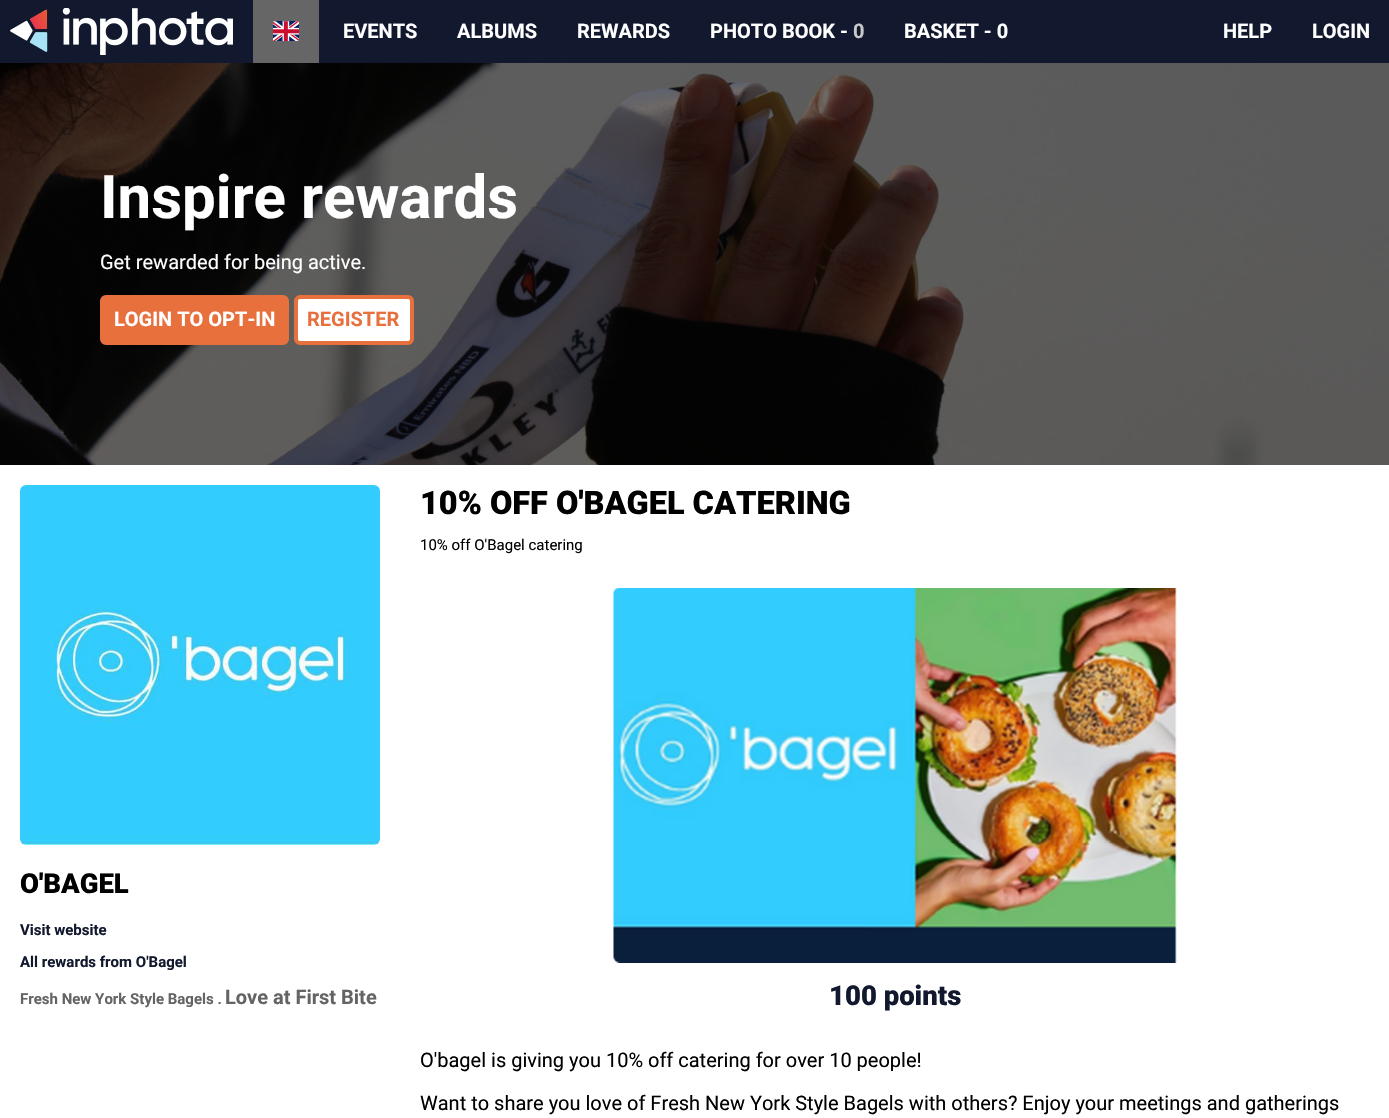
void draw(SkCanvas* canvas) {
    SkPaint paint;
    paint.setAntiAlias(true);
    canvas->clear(0xFFFFFFFF);
    paint.setColor(0xFF12192E);
    canvas->drawRect(SkRect::MakeXYWH(0, 0, 1389, 63), paint);
    canvas->drawImageRect(SkImages::DeferredFromEncodedData(SkData::MakeFromFileName("img1.png")), SkRect::MakeXYWH(10, 8, 223, 47), SkSamplingOptions());
    paint.setColor(0xFF666666);
    canvas->drawRect(SkRect::MakeXYWH(253, 0, 66, 63), paint);
    canvas->drawImageRect(SkImages::DeferredFromEncodedData(SkData::MakeFromFileName("img2.png")), SkRect::MakeXYWH(273, 21, 26, 20), SkSamplingOptions());
    SkFont font1(fontMgr->matchFamilyStyle("Roboto", SkFontStyle::Bold()), 20);
    font1.setSubpixel(true);
    paint.setColor(0xFFFFFFFF);
    canvas->drawString("EVENTS", 343, 38, font1, paint);
    canvas->drawString("ALBUMS", 457, 38, font1, paint);
    canvas->drawString("REWARDS", 577, 38, font1, paint);
    canvas->drawString("PHOTO BOOK -", 710, 38, font1, paint);
    paint.setColor(0xFFC8C8C8);
    canvas->drawString("0", 853, 38, font1, paint);
    paint.setColor(0xFFFFFFFF);
    canvas->drawString("BASKET - 0", 904, 38, font1, paint);
    canvas->drawString("HELP", 1223, 38, font1, paint);
    canvas->drawString("LOGIN", 1312, 38, font1, paint);
    canvas->drawImageRect(SkImages::DeferredFromEncodedData(SkData::MakeFromFileName("img3.png")), SkRect::MakeXYWH(0, 63, 1389, 402), SkSamplingOptions());
    SkFont font2(fontMgr->matchFamilyStyle("Roboto", SkFontStyle::Bold()), 60);
    font2.setSubpixel(true);
    canvas->drawString("Inspire rewards", 100, 218, font2, paint);
    SkFont font3(fontMgr->matchFamilyStyle("Roboto", SkFontStyle::Normal()), 20);
    font3.setSubpixel(true);
    canvas->drawString("Get rewarded for being active.", 100, 269, font3, paint);
    paint.setColor(0xFFE8703D);
    canvas->drawRoundRect(SkRect::MakeXYWH(102, 297, 185, 46), 4, 4, paint);
    paint.setStyle(SkPaint::kStroke_Style);
    paint.setStrokeWidth(4);
    canvas->drawRoundRect(SkRect::MakeXYWH(102, 297, 185, 46), 4, 4, paint);
    paint.setStyle(SkPaint::kFill_Style);
    paint.setColor(0xFFFFFFFF);
    canvas->drawString("LOGIN TO OPT-IN", 114, 326, font1, paint);
    canvas->drawRoundRect(SkRect::MakeXYWH(296, 297, 116, 46), 4, 4, paint);
    paint.setStyle(SkPaint::kStroke_Style);
    paint.setColor(0xFFE8703D);
    canvas->drawRoundRect(SkRect::MakeXYWH(296, 297, 116, 46), 4, 4, paint);
    paint.setStyle(SkPaint::kFill_Style);
    canvas->drawString("REGISTER", 307, 326, font1, paint);
    canvas->drawImageRect(SkImages::DeferredFromEncodedData(SkData::MakeFromFileName("img4.png")), SkRect::MakeXYWH(20, 485, 360, 360), SkSamplingOptions());
    SkFont font4(fontMgr->matchFamilyStyle("Roboto", SkFontStyle(900, SkFontStyle::kNormal_Width, SkFontStyle::kUpright_Slant)), 27.5f);
    font4.setSubpixel(true);
    paint.setColor(0xFF000000);
    canvas->drawString("O'BAGEL", 20, 893, font4, paint);
    SkFont font5(fontMgr->matchFamilyStyle("Roboto", SkFontStyle::Bold()), 15);
    font5.setSubpixel(true);
    paint.setColor(0xFF12192E);
    canvas->drawString("Visit website", 20, 935, font5, paint);
    canvas->drawString("All rewards from O'Bagel", 20, 967, font5, paint);
    paint.setColor(0xFF646464);
    canvas->drawString("Fresh New York Style Bagels .", 20, 1004, font5, paint);
    canvas->drawString("Love at First Bite", 225, 1004, font1, paint);
    SkFont font6(fontMgr->matchFamilyStyle("Roboto", SkFontStyle(900, SkFontStyle::kNormal_Width, SkFontStyle::kUpright_Slant)), 32.5f);
    font6.setSubpixel(true);
    paint.setColor(0xFF000000);
    canvas->drawString("10% OFF O'BAGEL CATERING", 420, 514, font6, paint);
    SkFont font7(fontMgr->matchFamilyStyle("Roboto", SkFontStyle::Normal()), 15);
    font7.setSubpixel(true);
    canvas->drawString("10% off O'Bagel catering", 420, 550, font7, paint);
    canvas->drawImageRect(SkImages::DeferredFromEncodedData(SkData::MakeFromFileName("img5.png")), SkRect::MakeXYWH(613, 588, 564, 375), SkSamplingOptions());
    paint.setColor(0xFF12192E);
    canvas->drawString("100 points", 829, 1005, font4, paint);
    paint.setColor(0xFF000000);
    canvas->drawString("O'bagel is giving you 10% off catering for over 10 people!", 420, 1067, font3, paint);
    canvas->drawString("Want to share you love of Fresh New York Style Bagels with others? Enjoy your meetings and gatherings", 420, 1110, font3, paint);
}
